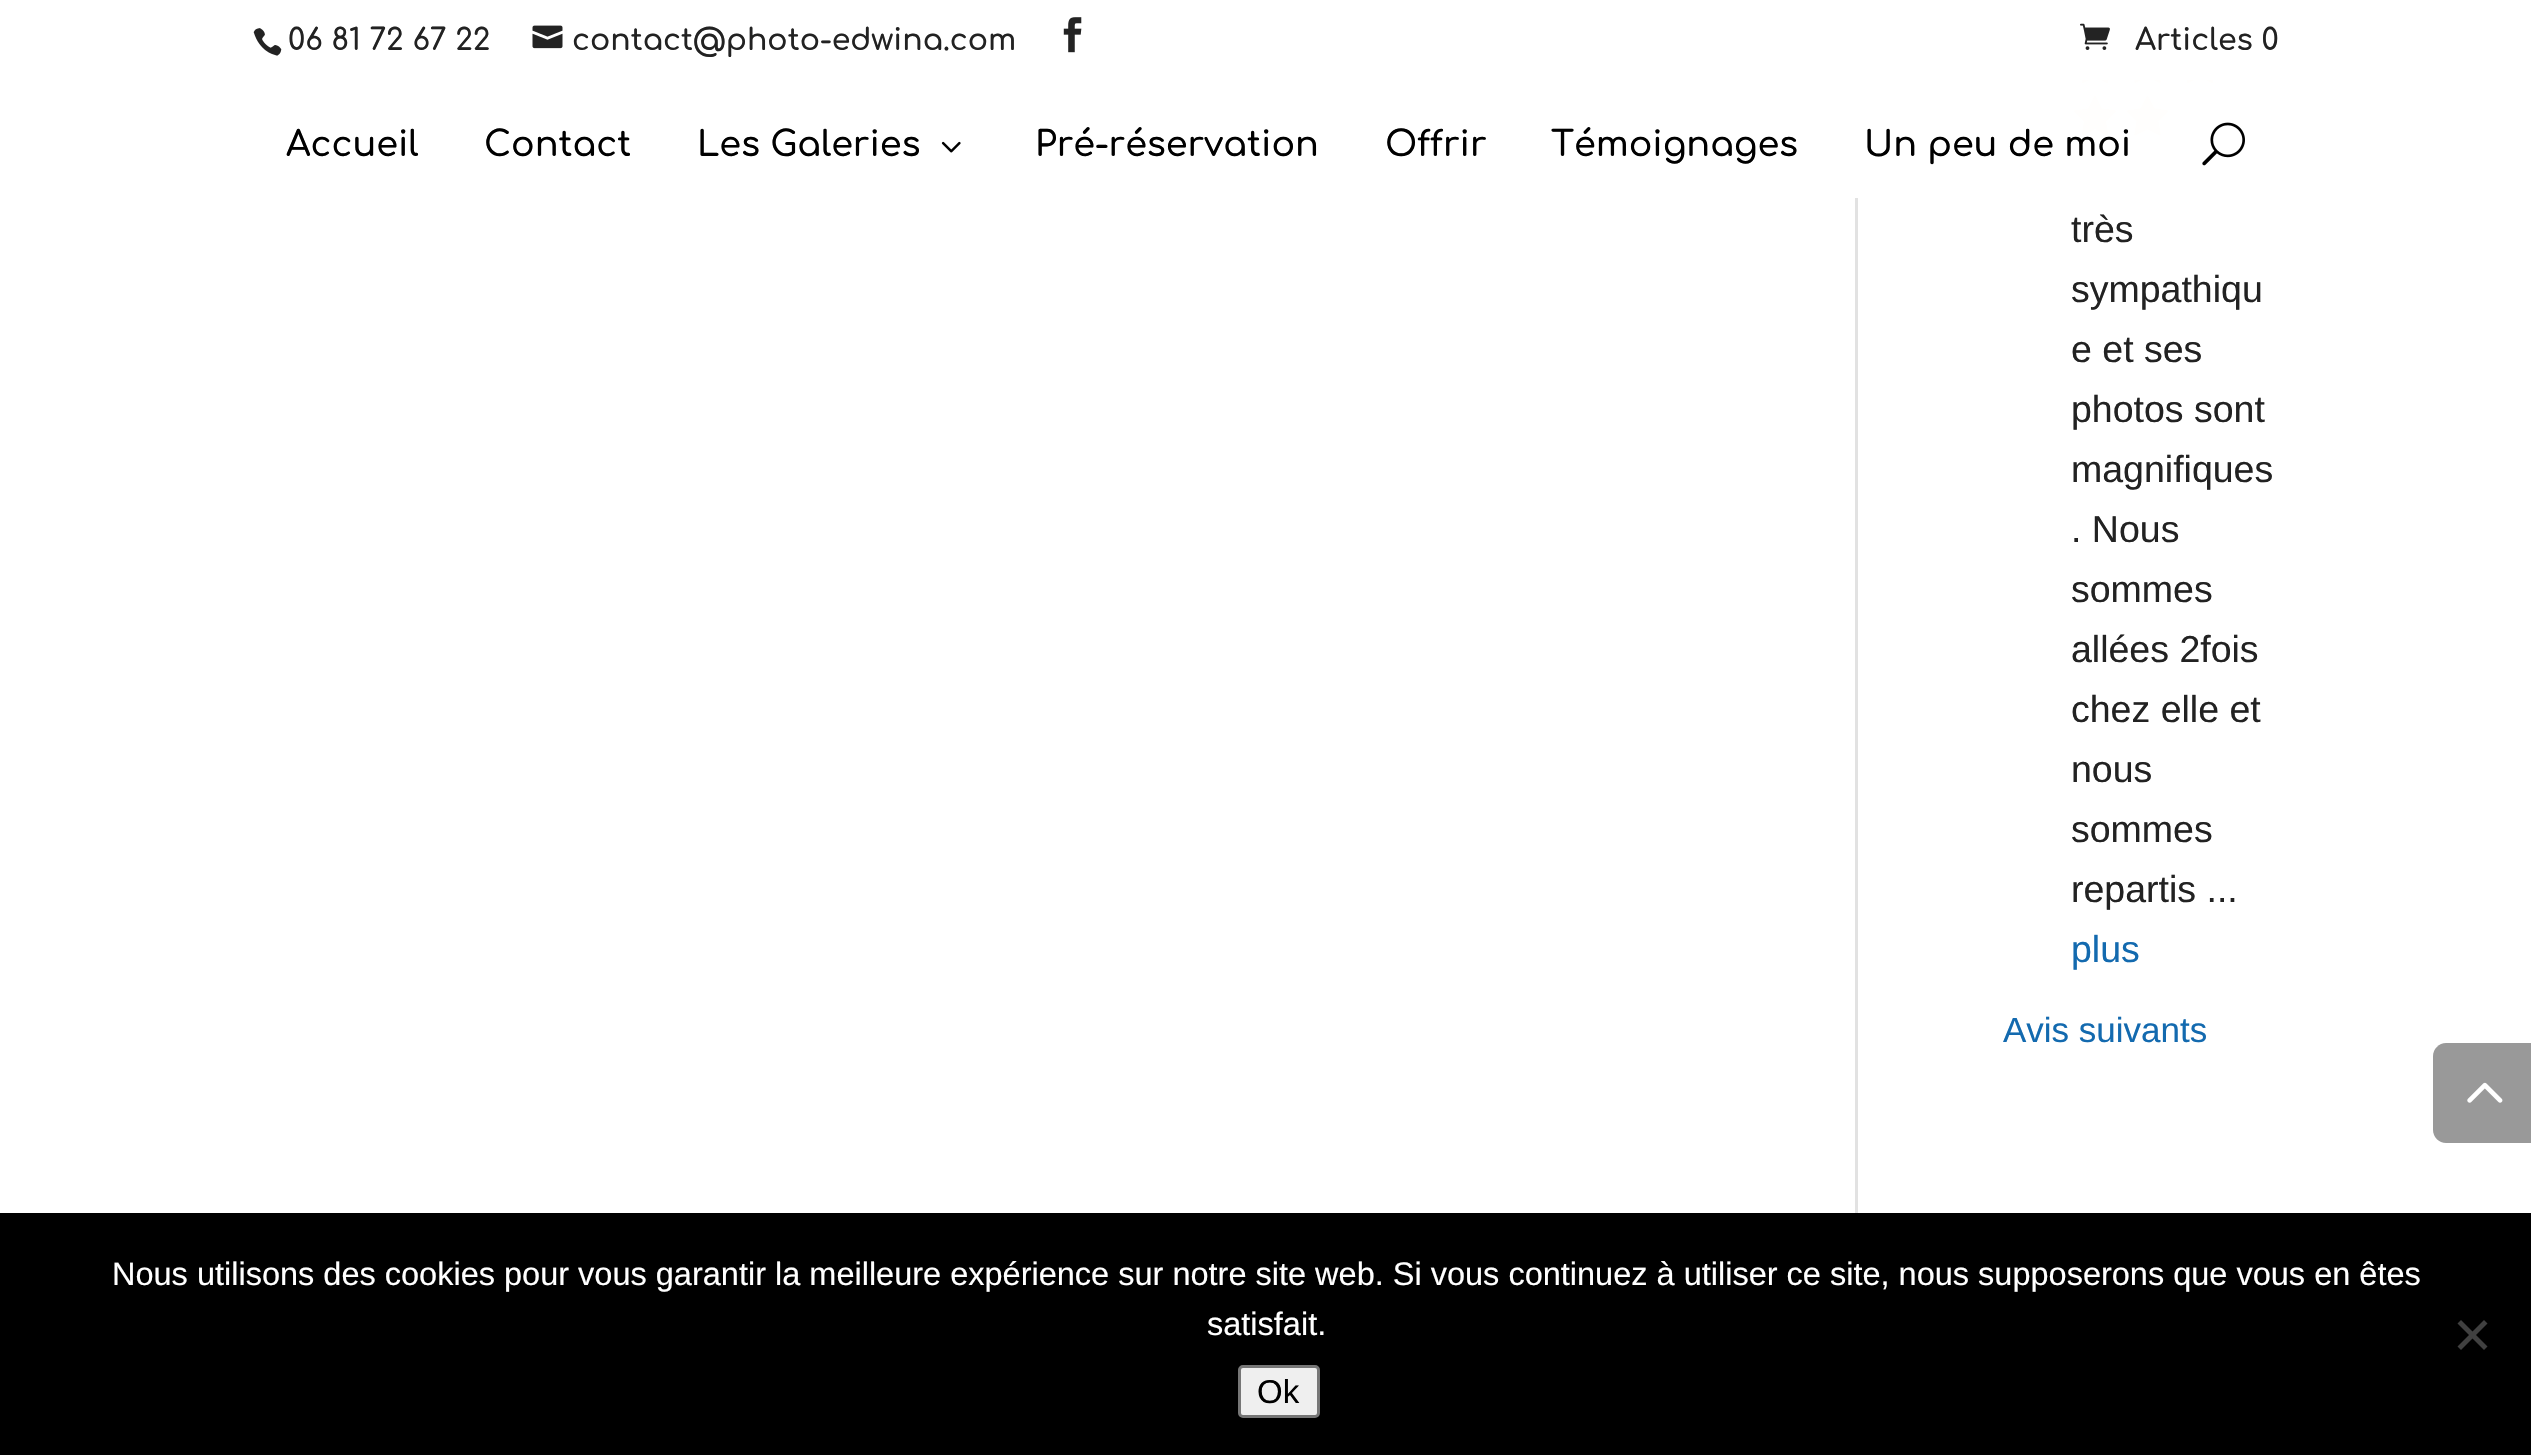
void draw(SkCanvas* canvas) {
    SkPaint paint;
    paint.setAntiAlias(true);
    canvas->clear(0xFFFFFFFF);
    canvas->drawImageRect(SkImages::DeferredFromEncodedData(SkData::MakeFromFileName("img1.png")), SkRect::MakeXYWH(253, 28, 29, 28), SkSamplingOptions());
    SkFont font1(fontMgr->matchFamilyStyle("Comfortaa", SkFontStyle(600, SkFontStyle::kNormal_Width, SkFontStyle::kUpright_Slant)), 30);
    font1.setSubpixel(true);
    paint.setColor(0xFF222222);
    canvas->drawString("06 81 72 67 22", 288, 50, font1, paint);
    canvas->drawImageRect(SkImages::DeferredFromEncodedData(SkData::MakeFromFileName("img2.png")), SkRect::MakeXYWH(532, 25, 31, 24), SkSamplingOptions());
    canvas->drawString("contact@photo-edwina.com", 572, 50, font1, paint);
    canvas->drawImageRect(SkImages::DeferredFromEncodedData(SkData::MakeFromFileName("img3.png")), SkRect::MakeXYWH(1063, 17, 19, 36), SkSamplingOptions());
    canvas->drawImageRect(SkImages::DeferredFromEncodedData(SkData::MakeFromFileName("img4.png")), SkRect::MakeXYWH(2080, 23, 30, 27), SkSamplingOptions());
    canvas->drawString("Articles 0", 2135, 50, font1, paint);
    paint.setColor(0xFFE2E2E2);
    canvas->drawRect(SkRect::MakeXYWH(1855, 80, 3, 1133), paint);
    canvas->drawImageRect(SkImages::DeferredFromEncodedData(SkData::MakeFromFileName("img7.png")), SkRect::MakeXYWH(2081, 80, 28, 4), SkSamplingOptions());
    canvas->drawImageRect(SkImages::DeferredFromEncodedData(SkData::MakeFromFileName("img8.png")), SkRect::MakeXYWH(2134, 80, 27, 4), SkSamplingOptions());
    canvas->drawImageRect(SkImages::DeferredFromEncodedData(SkData::MakeFromFileName("img7.png")), SkRect::MakeXYWH(2186, 80, 28, 4), SkSamplingOptions());
    canvas->drawImageRect(SkImages::DeferredFromEncodedData(SkData::MakeFromFileName("img9.png")), SkRect::MakeXYWH(2074, 95, 42, 41), SkSamplingOptions());
    canvas->drawImageRect(SkImages::DeferredFromEncodedData(SkData::MakeFromFileName("img10.png")), SkRect::MakeXYWH(2126, 95, 43, 41), SkSamplingOptions());
    paint.setColor(0xFCFFFFFF);
    canvas->drawRect(SkRect::MakeXYWH(1855, 80, 359, 118), paint);
    SkFont font2(fontMgr->matchFamilyStyle("Comfortaa", SkFontStyle(600, SkFontStyle::kNormal_Width, SkFontStyle::kUpright_Slant)), 35);
    font2.setSubpixel(true);
    paint.setColor(0xFF000000);
    canvas->drawString("Accueil", 286, 156, font2, paint);
    canvas->drawString("Contact", 484, 156, font2, paint);
    canvas->drawString("Les Galeries", 697, 156, font2, paint);
    canvas->drawImageRect(SkImages::DeferredFromEncodedData(SkData::MakeFromFileName("img5.png")), SkRect::MakeXYWH(941, 141, 20, 12), SkSamplingOptions());
    canvas->drawString("Pré-réservation", 1035, 156, font2, paint);
    canvas->drawString("Offrir", 1385, 156, font2, paint);
    canvas->drawString("Témoignages", 1551, 156, font2, paint);
    canvas->drawString("Un peu de moi", 1864, 156, font2, paint);
    canvas->drawImageRect(SkImages::DeferredFromEncodedData(SkData::MakeFromFileName("img6.png")), SkRect::MakeXYWH(2202, 122, 43, 44), SkSamplingOptions());
    SkFont font3(fontMgr->matchFamilyStyle("Liberation Sans", SkFontStyle::Normal()), 37.5f);
    font3.setSubpixel(true);
    paint.setColor(0xFF222222);
    canvas->drawString("très", 2071, 242, font3, paint);
    canvas->drawString("sympathiqu", 2071, 302, font3, paint);
    canvas->drawString("e et ses", 2071, 362, font3, paint);
    canvas->drawString("photos sont", 2071, 422, font3, paint);
    canvas->drawString("magnifiques", 2071, 482, font3, paint);
    canvas->drawString(". Nous", 2071, 542, font3, paint);
    canvas->drawString("sommes", 2071, 602, font3, paint);
    canvas->drawString("allées 2fois", 2071, 662, font3, paint);
    canvas->drawString("chez elle et", 2071, 722, font3, paint);
    canvas->drawString("nous", 2071, 782, font3, paint);
    canvas->drawString("sommes", 2071, 842, font3, paint);
    canvas->drawString("repartis ...", 2071, 902, font3, paint);
    paint.setColor(0xFF136AAF);
    canvas->drawString("plus", 2071, 962, font3, paint);
    SkFont font4(fontMgr->matchFamilyStyle("Liberation Sans", SkFontStyle::Normal()), 35);
    font4.setSubpixel(true);
    canvas->drawString("Avis suivants", 2003, 1042, font4, paint);
    paint.setColor(0xFF999999);
    canvas->drawPath(SkPathBuilder().moveTo(2446, 1043).lineTo(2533, 1043).lineTo(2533, 1143).lineTo(2446, 1143).cubicTo(2439, 1143, 2433, 1137, 2433, 1130).lineTo(2433, 1056).cubicTo(2433, 1049, 2439, 1043, 2446, 1043).close().detach(), paint);
    canvas->drawImageRect(SkImages::DeferredFromEncodedData(SkData::MakeFromFileName("img11.png")), SkRect::MakeXYWH(2467, 1082, 36, 21), SkSamplingOptions());
    paint.setColor(0xFF000000);
    canvas->drawRect(SkRect::MakeXYWH(0, 1213, 2531, 242), paint);
    SkFont font5(fontMgr->matchFamilyStyle("Liberation Sans", SkFontStyle::Normal()), 32.5f);
    font5.setSubpixel(true);
    paint.setColor(0xFFFFFFFF);
    canvas->drawString("Nous utilisons des cookies pour vous garantir la meilleure expérience sur notre site web. Si vous continuez à utiliser ce site, nous supposerons que vous en êtes", 112, 1285, font5, paint);
    canvas->drawString("satisfait.", 1207, 1335, font5, paint);
    paint.setColor(0xFF404040);
    canvas->drawPath(SkPathBuilder().moveTo(2484, 1320).lineTo(2487.5f, 1323.5f).lineTo(2461, 1350).lineTo(2457.5f, 1346.5f).close().detach(), paint);
    canvas->drawPath(SkPathBuilder().moveTo(2457.5f, 1323.5f).lineTo(2461, 1320).lineTo(2487.5f, 1346.5f).lineTo(2484, 1350).close().detach(), paint);
    paint.setColor(0xFFEFEFEF);
    canvas->drawRoundRect(SkRect::MakeXYWH(1239.5f, 1366.5f, 79, 50), 3.5f, 3.5f, paint);
    paint.setStyle(SkPaint::kStroke_Style);
    paint.setStrokeWidth(3);
    paint.setColor(0xFF767676);
    canvas->drawRoundRect(SkRect::MakeXYWH(1239.5f, 1366.5f, 79, 50), 3.5f, 3.5f, paint);
    SkFont font6(fontMgr->matchFamilyStyle("Liberation Sans", SkFontStyle::Normal()), 33);
    font6.setSubpixel(true);
    paint.setStyle(SkPaint::kFill_Style);
    paint.setColor(0xFF000000);
    canvas->drawString("Ok", 1257, 1403, font6, paint);
}
